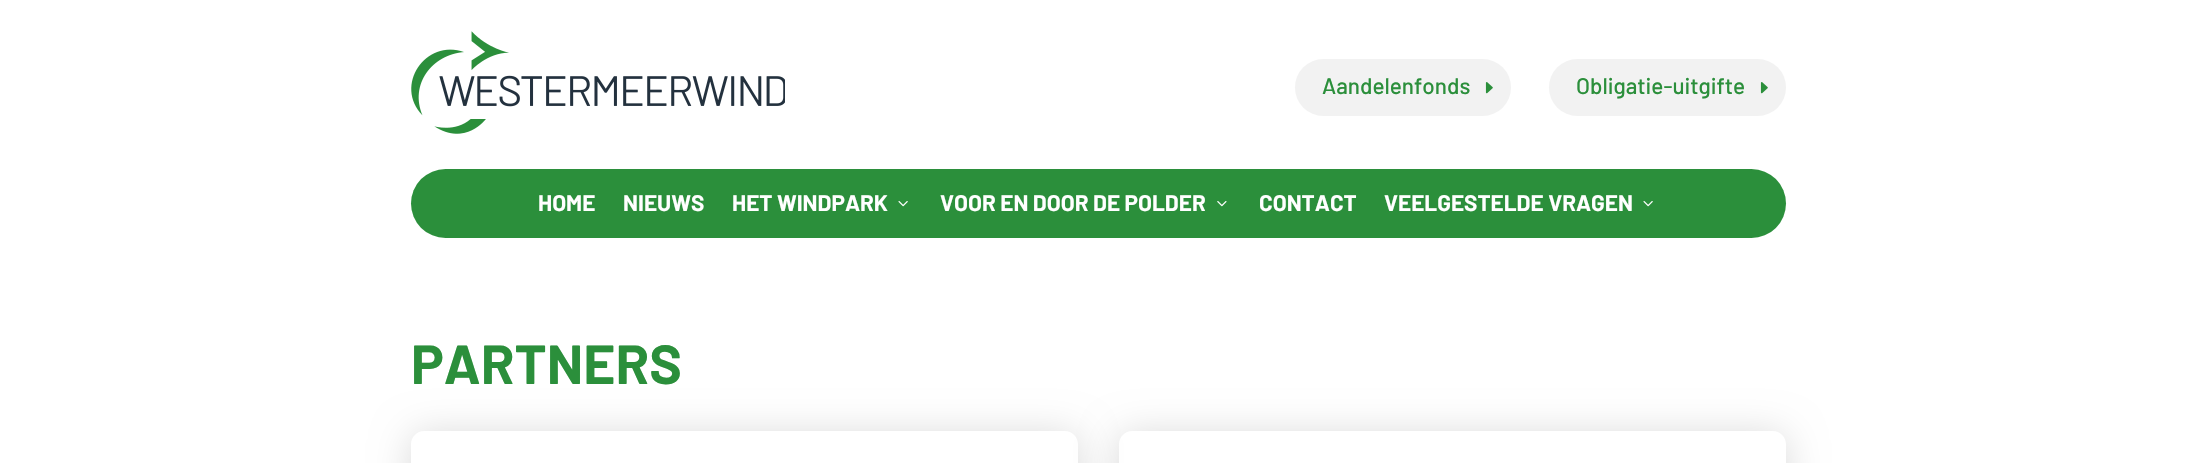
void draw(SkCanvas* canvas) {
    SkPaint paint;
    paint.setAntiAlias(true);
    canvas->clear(0xFFFFFFFF);
    canvas->drawImageRect(SkImages::DeferredFromEncodedData(SkData::MakeFromFileName("img1.png")), SkRect::MakeXYWH(411, 31, 374, 103), SkSamplingOptions());
    paint.setColor(0xFFF2F2F2);
    canvas->drawRoundRect(SkRect::MakeXYWH(1295, 59, 216, 57), 28.5f, 28.5f, paint);
    SkFont font1(fontMgr->matchFamilyStyle("Barlow", SkFontStyle(500, SkFontStyle::kNormal_Width, SkFontStyle::kUpright_Slant)), 22.5f);
    font1.setSubpixel(true);
    paint.setColor(0xFF2B8F3B);
    canvas->drawString("Aandelenfonds", 1322, 94, font1, paint);
    canvas->drawImageRect(SkImages::DeferredFromEncodedData(SkData::MakeFromFileName("img2.png")), SkRect::MakeXYWH(1485, 82, 8, 12), SkSamplingOptions());
    paint.setColor(0xFFF2F2F2);
    canvas->drawRoundRect(SkRect::MakeXYWH(1549, 59, 237, 57), 28.5f, 28.5f, paint);
    paint.setColor(0xFF2B8F3B);
    canvas->drawString("Obligatie-uitgifte", 1576, 94, font1, paint);
    canvas->drawImageRect(SkImages::DeferredFromEncodedData(SkData::MakeFromFileName("img2.png")), SkRect::MakeXYWH(1760, 82, 8, 12), SkSamplingOptions());
    canvas->drawRoundRect(SkRect::MakeXYWH(411, 169, 1375, 69), 34.5f, 34.5f, paint);
    SkFont font2(fontMgr->matchFamilyStyle("Barlow", SkFontStyle::Bold()), 22.5f);
    font2.setSubpixel(true);
    paint.setColor(0xFFFFFFFF);
    canvas->drawString("HOME", 538, 211, font2, paint);
    canvas->drawString("NIEUWS", 623, 211, font2, paint);
    canvas->drawString("HET WINDPARK", 732, 211, font2, paint);
    canvas->drawImageRect(SkImages::DeferredFromEncodedData(SkData::MakeFromFileName("img3.png")), SkRect::MakeXYWH(898, 201, 10, 6), SkSamplingOptions());
    canvas->drawString("VOOR EN DOOR DE POLDER", 940, 211, font2, paint);
    canvas->drawImageRect(SkImages::DeferredFromEncodedData(SkData::MakeFromFileName("img4.png")), SkRect::MakeXYWH(1217, 201, 10, 6), SkSamplingOptions());
    canvas->drawString("CONTACT", 1259, 211, font2, paint);
    canvas->drawString("VEELGESTELDE VRAGEN", 1384, 211, font2, paint);
    canvas->drawImageRect(SkImages::DeferredFromEncodedData(SkData::MakeFromFileName("img3.png")), SkRect::MakeXYWH(1643, 201, 10, 6), SkSamplingOptions());
    SkFont font3(fontMgr->matchFamilyStyle("Barlow", SkFontStyle::Bold()), 55);
    font3.setSubpixel(true);
    paint.setColor(0xFF2B8F3B);
    canvas->drawString("PARTNERS", 411, 384, font3, paint);
    canvas->save();
    canvas->clipPath(SkPathBuilder(SkPathFillType::kEvenOdd).moveTo(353, 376).lineTo(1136, 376).lineTo(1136, 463).lineTo(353, 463).close().moveTo(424, 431).lineTo(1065, 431).cubicTo(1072, 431, 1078, 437, 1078, 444).lineTo(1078, 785).cubicTo(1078, 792, 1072, 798, 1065, 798).lineTo(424, 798).cubicTo(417, 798, 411, 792, 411, 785).lineTo(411, 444).cubicTo(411, 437, 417, 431, 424, 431).close().detach(), true);
    paint.setColor(0x26000000);
    paint.setMaskFilter(SkMaskFilter::MakeBlur(kNormal_SkBlurStyle, 19));
    canvas->drawRoundRect(SkRect::MakeXYWH(411, 434, 667, 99), 13, 13, paint);
    paint.setMaskFilter(nullptr);
    canvas->restore();
    canvas->save();
    canvas->clipPath(SkPathBuilder(SkPathFillType::kEvenOdd).moveTo(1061, 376).lineTo(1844, 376).lineTo(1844, 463).lineTo(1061, 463).close().moveTo(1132, 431).lineTo(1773, 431).cubicTo(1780, 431, 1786, 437, 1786, 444).lineTo(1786, 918).cubicTo(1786, 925, 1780, 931, 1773, 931).lineTo(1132, 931).cubicTo(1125, 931, 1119, 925, 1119, 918).lineTo(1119, 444).cubicTo(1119, 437, 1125, 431, 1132, 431).close().detach(), true);
    paint.setMaskFilter(SkMaskFilter::MakeBlur(kNormal_SkBlurStyle, 19));
    canvas->drawRoundRect(SkRect::MakeXYWH(1119, 434, 667, 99), 13, 13, paint);
    paint.setMaskFilter(nullptr);
    canvas->restore();
}
